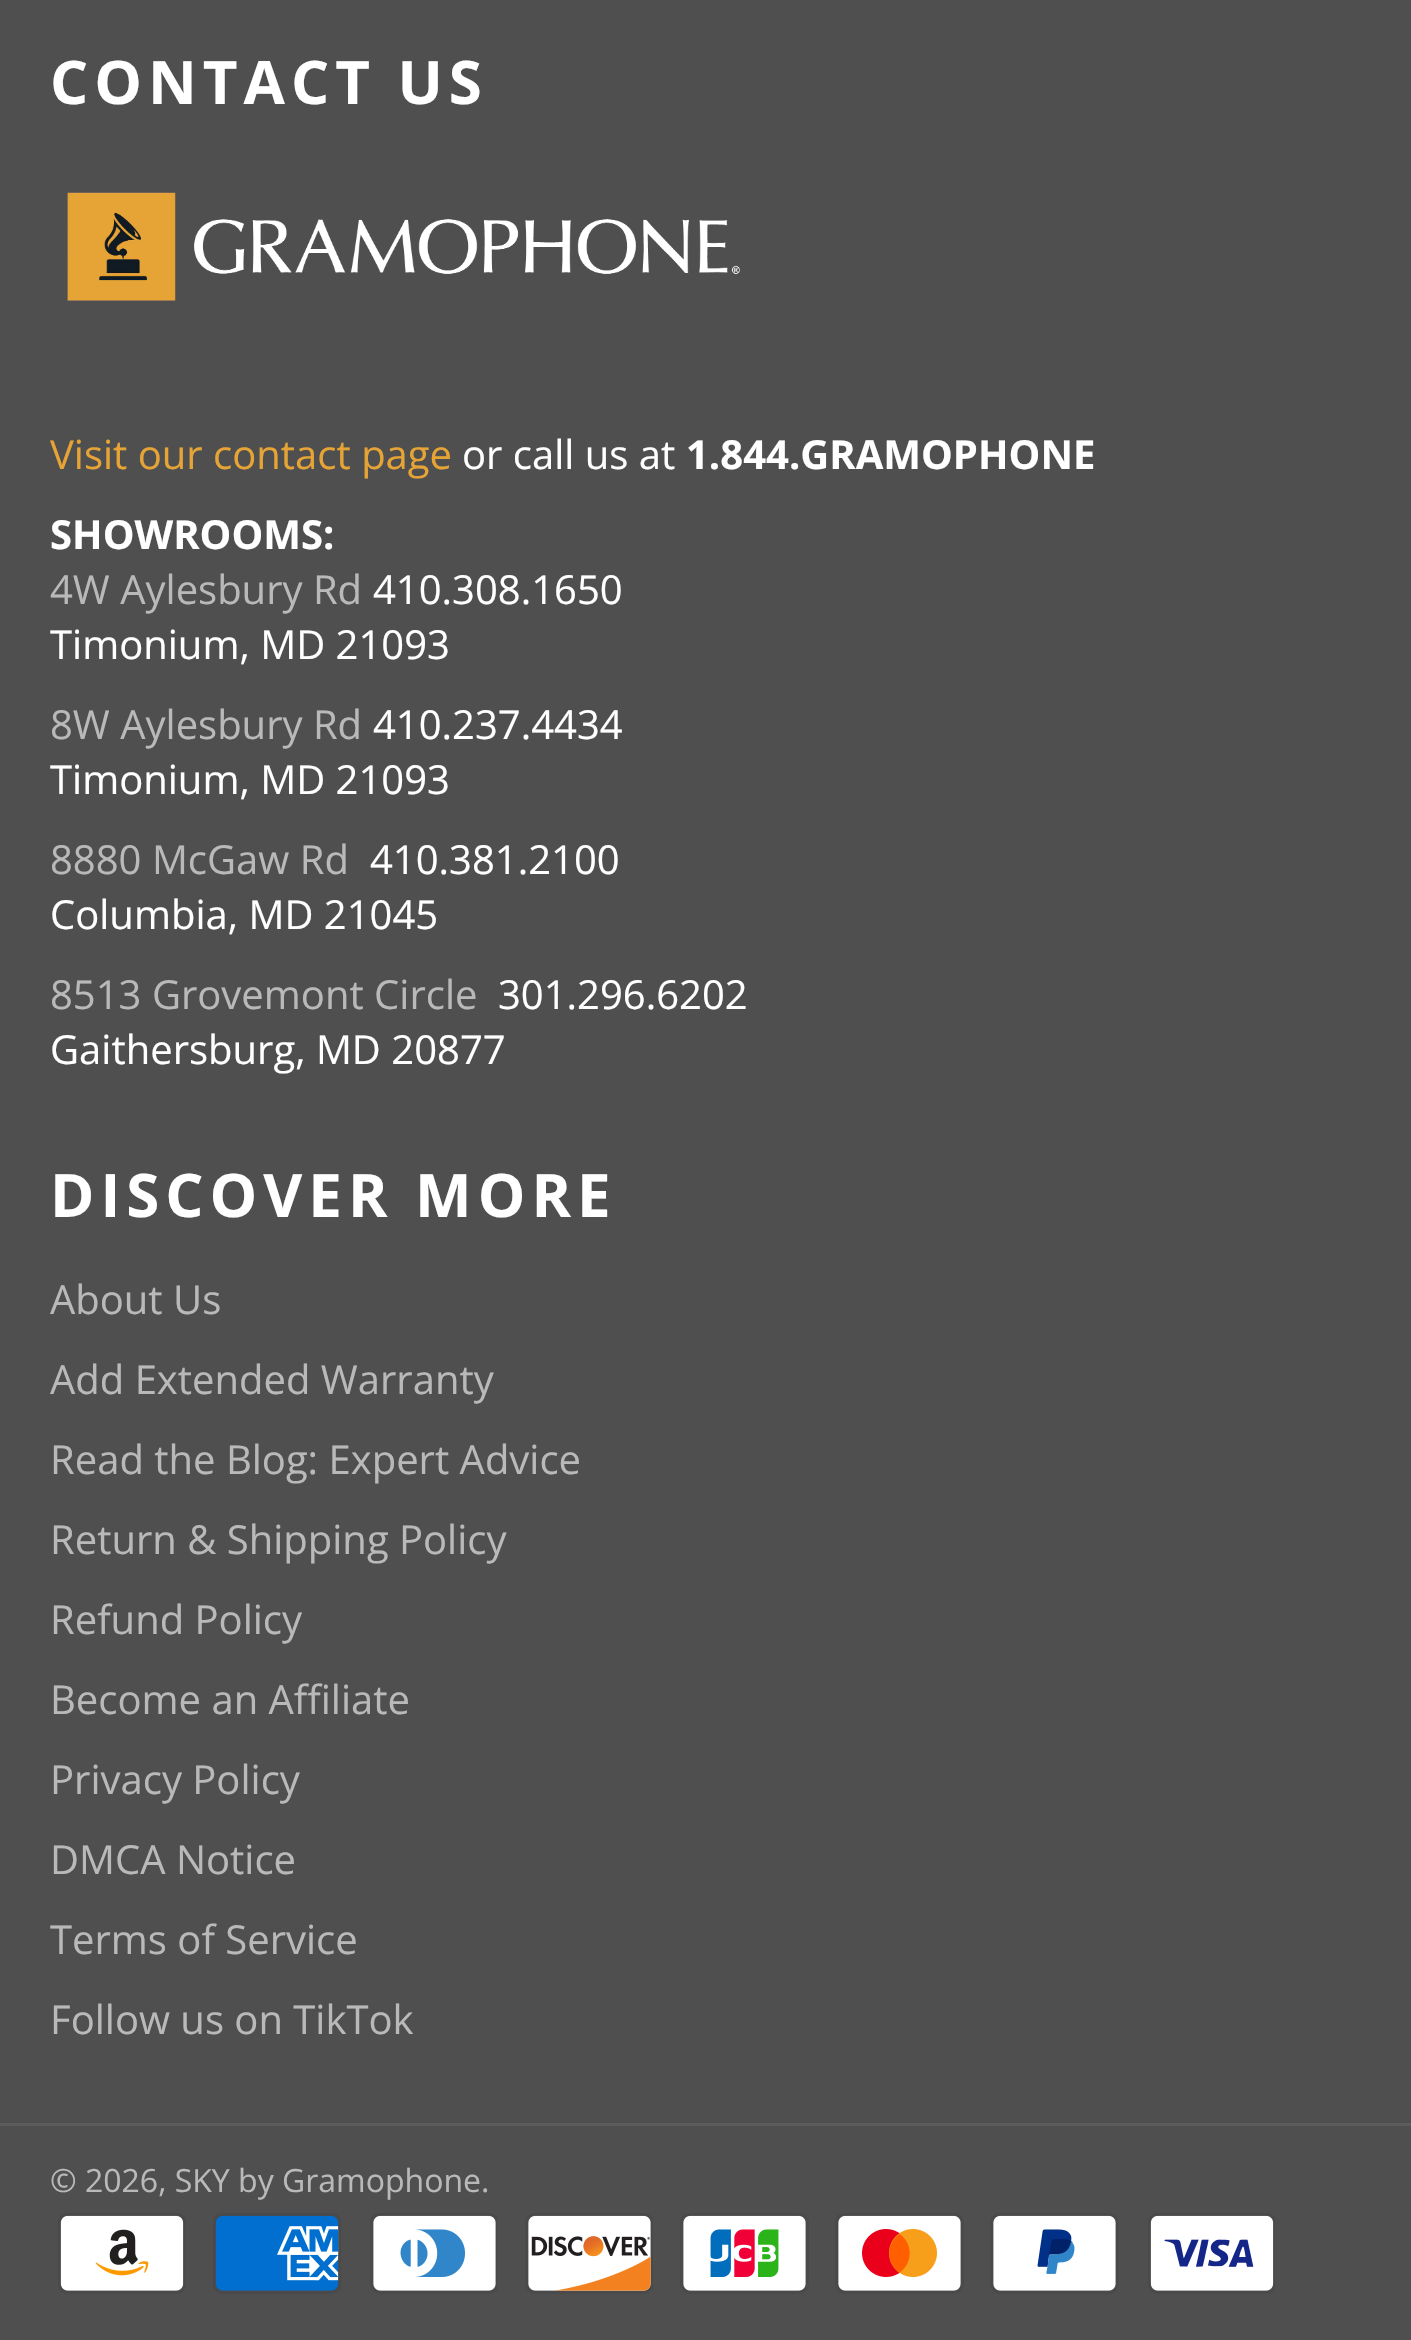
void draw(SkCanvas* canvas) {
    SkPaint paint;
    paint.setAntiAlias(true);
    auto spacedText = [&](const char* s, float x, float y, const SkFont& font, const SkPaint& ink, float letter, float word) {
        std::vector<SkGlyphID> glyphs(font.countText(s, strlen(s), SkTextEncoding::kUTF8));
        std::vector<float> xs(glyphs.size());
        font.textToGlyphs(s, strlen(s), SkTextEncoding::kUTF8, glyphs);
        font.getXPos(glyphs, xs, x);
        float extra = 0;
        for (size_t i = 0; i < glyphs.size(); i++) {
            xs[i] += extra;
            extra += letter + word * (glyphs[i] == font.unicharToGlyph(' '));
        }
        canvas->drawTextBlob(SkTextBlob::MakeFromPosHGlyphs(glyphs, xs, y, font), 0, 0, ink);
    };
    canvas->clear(0xFF4F4F4F);
    SkFont font1(fontMgr->matchFamilyStyle("Open Sans", SkFontStyle::Bold()), 60);
    font1.setSubpixel(true);
    paint.setColor(0xFFFFFFFF);
    spacedText("CONTACT US", 50, 104, font1, paint, 6, 0);
    canvas->drawImageRect(SkImages::DeferredFromEncodedData(SkData::MakeFromFileName("img1.png")), SkRect::MakeXYWH(67, 192, 673, 109), SkSamplingOptions());
    SkFont font2(fontMgr->matchFamilyStyle("Open Sans", SkFontStyle::Normal()), 40);
    font2.setSubpixel(true);
    paint.setColor(0xFFE6A436);
    canvas->drawString("Visit our contact page", 50, 469, font2, paint);
    paint.setColor(0xFFFFFFFF);
    canvas->drawString("or call us at", 462, 469, font2, paint);
    SkFont font3(fontMgr->matchFamilyStyle("Open Sans", SkFontStyle::Bold()), 40);
    font3.setSubpixel(true);
    canvas->drawString("1.844.GRAMOPHONE", 686, 469, font3, paint);
    canvas->drawString("SHOWROOMS:", 50, 549, font3, paint);
    paint.setColor(0xFFB9B9B9);
    canvas->drawString("4W Aylesbury Rd", 50, 604, font2, paint);
    paint.setColor(0xFFFFFFFF);
    canvas->drawString("410.308.1650", 373, 604, font2, paint);
    canvas->drawString("Timonium, MD 21093", 50, 659, font2, paint);
    paint.setColor(0xFFB9B9B9);
    canvas->drawString("8W Aylesbury Rd", 50, 739, font2, paint);
    paint.setColor(0xFFFFFFFF);
    canvas->drawString("410.237.4434", 373, 739, font2, paint);
    canvas->drawString("Timonium, MD 21093", 50, 794, font2, paint);
    paint.setColor(0xFFB9B9B9);
    canvas->drawString("8880 McGaw Rd", 50, 874, font2, paint);
    paint.setColor(0xFFFFFFFF);
    canvas->drawString("410.381.2100", 370, 874, font2, paint);
    canvas->drawString("Columbia, MD 21045", 50, 929, font2, paint);
    paint.setColor(0xFFB9B9B9);
    canvas->drawString("8513 Grovemont Circle", 50, 1009, font2, paint);
    paint.setColor(0xFFFFFFFF);
    canvas->drawString("301.296.6202", 498, 1009, font2, paint);
    canvas->drawString("Gaithersburg, MD 20877", 50, 1064, font2, paint);
    spacedText("DISCOVER MORE", 50, 1217, font1, paint, 6, 0);
    paint.setColor(0xFFB9B9B9);
    canvas->drawString("About Us", 50, 1314, font2, paint);
    canvas->drawString("Add Extended Warranty", 50, 1394, font2, paint);
    canvas->drawString("Read the Blog: Expert Advice", 50, 1474, font2, paint);
    canvas->drawString("Return & Shipping Policy", 50, 1554, font2, paint);
    canvas->drawString("Refund Policy", 50, 1634, font2, paint);
    canvas->drawString("Become an Affiliate", 50, 1714, font2, paint);
    canvas->drawString("Privacy Policy", 50, 1794, font2, paint);
    canvas->drawString("DMCA Notice", 50, 1874, font2, paint);
    canvas->drawString("Terms of Service", 50, 1954, font2, paint);
    canvas->drawString("Follow us on TikTok", 50, 2034, font2, paint);
    paint.setColor(0xFF5C5C5C);
    canvas->drawRect(SkRect::MakeXYWH(0, 2123, 1411, 3), paint);
    SkFont font4(fontMgr->matchFamilyStyle("Open Sans", SkFontStyle::Normal()), 32);
    font4.setSubpixel(true);
    paint.setColor(0xFFB9B9B9);
    canvas->drawString("© 2026, SKY by Gramophone.", 50, 2192, font4, paint);
    canvas->drawImageRect(SkImages::DeferredFromEncodedData(SkData::MakeFromFileName("img2.png")), SkRect::MakeXYWH(58, 2213, 128, 81), SkSamplingOptions());
    canvas->drawImageRect(SkImages::DeferredFromEncodedData(SkData::MakeFromFileName("img3.png")), SkRect::MakeXYWH(213, 2213, 128, 81), SkSamplingOptions());
    canvas->drawImageRect(SkImages::DeferredFromEncodedData(SkData::MakeFromFileName("img4.png")), SkRect::MakeXYWH(370, 2213, 128, 81), SkSamplingOptions());
    canvas->drawImageRect(SkImages::DeferredFromEncodedData(SkData::MakeFromFileName("img5.png")), SkRect::MakeXYWH(525, 2213, 128, 81), SkSamplingOptions());
    canvas->drawImageRect(SkImages::DeferredFromEncodedData(SkData::MakeFromFileName("img6.png")), SkRect::MakeXYWH(680, 2213, 129, 81), SkSamplingOptions());
    canvas->drawImageRect(SkImages::DeferredFromEncodedData(SkData::MakeFromFileName("img7.png")), SkRect::MakeXYWH(835, 2213, 129, 81), SkSamplingOptions());
    canvas->drawImageRect(SkImages::DeferredFromEncodedData(SkData::MakeFromFileName("img8.png")), SkRect::MakeXYWH(990, 2213, 129, 81), SkSamplingOptions());
    canvas->drawImageRect(SkImages::DeferredFromEncodedData(SkData::MakeFromFileName("img9.png")), SkRect::MakeXYWH(1148, 2213, 127, 81), SkSamplingOptions());
}
